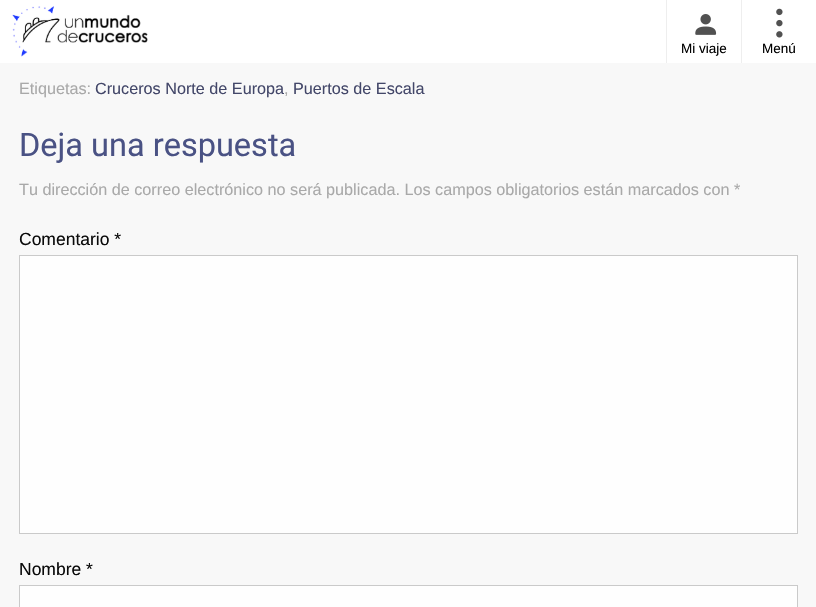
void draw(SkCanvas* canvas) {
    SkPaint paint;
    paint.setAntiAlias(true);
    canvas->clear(0xFFF8F8F8);
    paint.setColor(0xFFFFFFFF);
    canvas->drawRect(SkRect::MakeXYWH(0, 0, 816, 63), paint);
    canvas->drawImageRect(SkImages::DeferredFromEncodedData(SkData::MakeFromFileName("img1.png")), SkRect::MakeXYWH(12, 6, 136, 51), SkSamplingOptions());
    paint.setColor(0xFFEEEEEE);
    canvas->drawRect(SkRect::MakeXYWH(666, 0, 1, 63), paint);
    canvas->drawImageRect(SkImages::DeferredFromEncodedData(SkData::MakeFromFileName("img2.png")), SkRect::MakeXYWH(695, 14, 22, 21), SkSamplingOptions());
    SkFont font1(fontMgr->matchFamilyStyle("Liberation Sans", SkFontStyle::Normal()), 13.5f);
    font1.setSubpixel(true);
    paint.setColor(0xFF000000);
    canvas->drawString("Mi viaje", 681, 53, font1, paint);
    paint.setColor(0xFFEEEEEE);
    canvas->drawRect(SkRect::MakeXYWH(741, 0, 1, 63), paint);
    canvas->drawImageRect(SkImages::DeferredFromEncodedData(SkData::MakeFromFileName("img3.png")), SkRect::MakeXYWH(776, 8, 7, 30), SkSamplingOptions());
    paint.setColor(0xFF000000);
    canvas->drawString("Menú", 762, 53, font1, paint);
    SkFont font2(fontMgr->matchFamilyStyle("Liberation Sans", SkFontStyle::Normal()), 16.2f);
    font2.setSubpixel(true);
    paint.setColor(0xFFA9A9A9);
    canvas->drawString("Etiquetas:", 19, 94, font2, paint);
    paint.setColor(0xFF434769);
    canvas->drawString("Cruceros Norte de Europa", 95, 94, font2, paint);
    paint.setColor(0xFFA9A9A9);
    canvas->drawString(",", 284, 94, font2, paint);
    paint.setColor(0xFF434769);
    canvas->drawString("Puertos de Escala", 293, 94, font2, paint);
    SkFont font3(fontMgr->matchFamilyStyle("Roboto", SkFontStyle::Normal()), 32.5f);
    font3.setSubpixel(true);
    paint.setColor(0xFF4A5284);
    canvas->drawString("Deja una respuesta", 19, 156, font3, paint);
    paint.setColor(0xFFA9A9A9);
    canvas->drawString("Tu dirección de correo electrónico no será publicada. Los campos obligatorios están marcados con *", 19, 195, font2, paint);
    SkFont font4(fontMgr->matchFamilyStyle("Liberation Sans", SkFontStyle::Normal()), 17.5f);
    font4.setSubpixel(true);
    paint.setColor(0xFF0A0A0A);
    canvas->drawString("Comentario *", 19, 245, font4, paint);
    paint.setColor(0xFFFEFEFE);
    canvas->drawRect(SkRect::MakeXYWH(19.5f, 255.5f, 778, 278), paint);
    paint.setStyle(SkPaint::kStroke_Style);
    paint.setStrokeWidth(1);
    paint.setColor(0xFFCACACA);
    canvas->drawRect(SkRect::MakeXYWH(19.5f, 255.5f, 778, 278), paint);
    paint.setStyle(SkPaint::kFill_Style);
    paint.setColor(0xFF0A0A0A);
    canvas->drawString("Nombre *", 19, 575, font4, paint);
    paint.setColor(0xFFFEFEFE);
    canvas->drawRect(SkRect::MakeXYWH(19.5f, 585.5f, 778, 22), paint);
    paint.setStyle(SkPaint::kStroke_Style);
    paint.setColor(0xFFCACACA);
    canvas->drawRect(SkRect::MakeXYWH(19.5f, 585.5f, 778, 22), paint);
}
